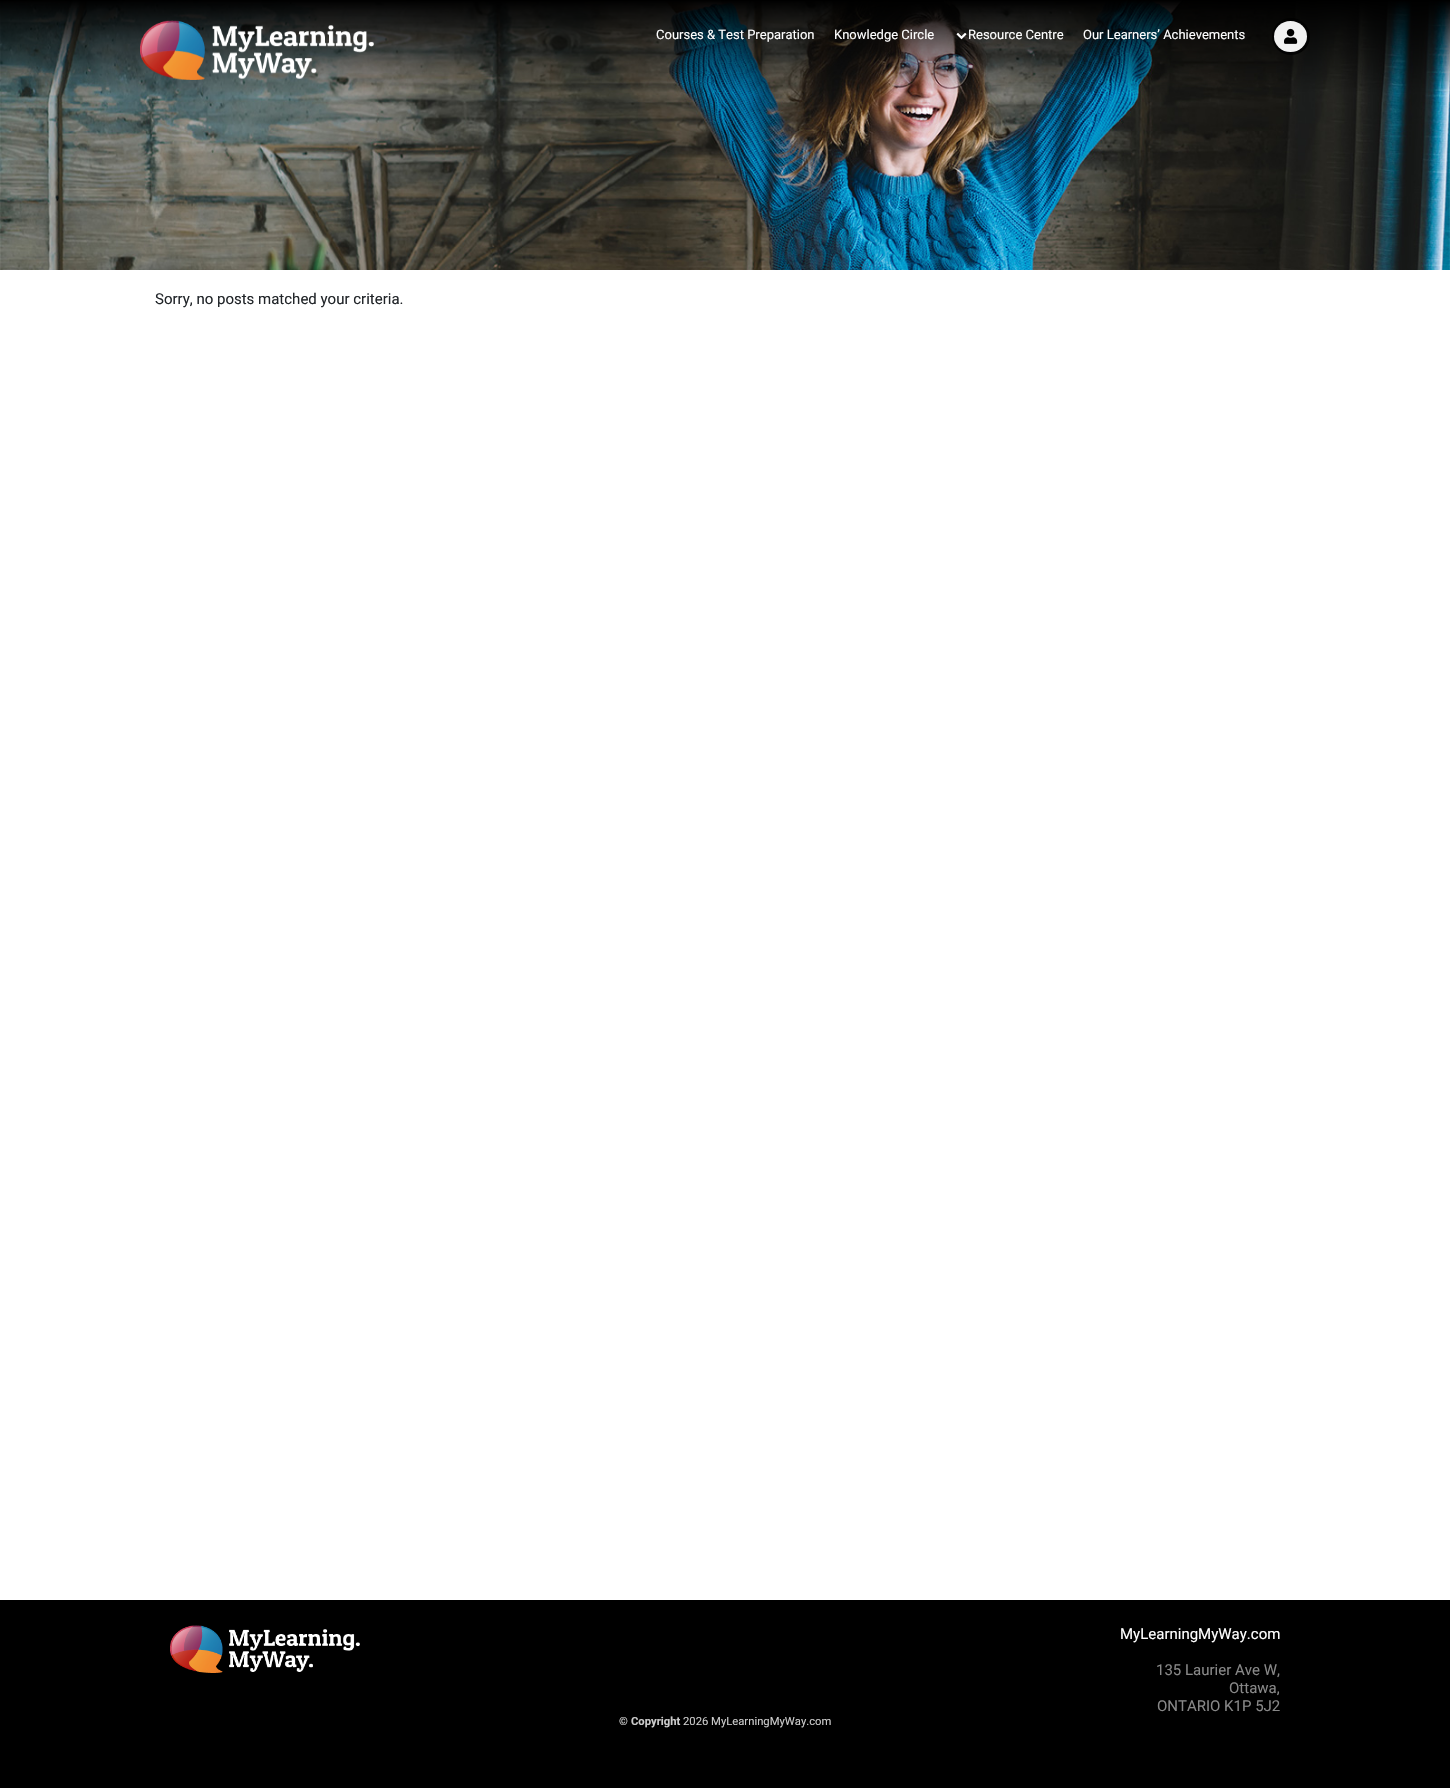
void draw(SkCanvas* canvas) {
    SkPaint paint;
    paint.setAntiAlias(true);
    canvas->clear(0xFFFFFFFF);
    canvas->drawImageRect(SkImages::DeferredFromEncodedData(SkData::MakeFromFileName("img4.png")), SkRect::MakeXYWH(0, 0, 1450, 270), SkSamplingOptions());
    canvas->drawImageRect(SkImages::DeferredFromEncodedData(SkData::MakeFromFileName("img1.png")), SkRect::MakeXYWH(140, 20, 234, 60), SkSamplingOptions());
    SkFont font1(fontMgr->matchFamilyStyle("Roboto", SkFontStyle::Normal()), 13);
    font1.setSubpixel(true);
    paint.setColor(0xFFFFFFFF);
    canvas->drawString("Courses & Test Preparation", 656, 39, font1, paint);
    canvas->drawString("Knowledge Circle", 834, 39, font1, paint);
    canvas->drawImageRect(SkImages::DeferredFromEncodedData(SkData::MakeFromFileName("img2.png")), SkRect::MakeXYWH(956, 32, 11, 8), SkSamplingOptions());
    canvas->drawString("Resource Centre", 968, 39, font1, paint);
    canvas->drawString("Our Learners’ Achievements", 1083, 39, font1, paint);
    paint.setColor(0xCC000000);
    canvas->drawRoundRect(SkRect::MakeXYWH(1272, 18, 38, 37), 18.5f, 18.5f, paint);
    paint.setColor(0xFFF1F1F1);
    canvas->drawOval(SkRect::MakeXYWH(1274, 21, 33, 31), paint);
    canvas->drawImageRect(SkImages::DeferredFromEncodedData(SkData::MakeFromFileName("img3.png")), SkRect::MakeXYWH(1284, 28, 14, 16), SkSamplingOptions());
    SkFont font2(fontMgr->matchFamilyStyle("Roboto", SkFontStyle::Normal()), 15);
    font2.setSubpixel(true);
    paint.setColor(0xFF212529);
    canvas->drawString("Sorry, no posts matched your criteria.", 155, 304, font2, paint);
    paint.setColor(0xFF000000);
    canvas->drawRect(SkRect::MakeXYWH(0, 1600, 1450, 188), paint);
    canvas->drawImageRect(SkImages::DeferredFromEncodedData(SkData::MakeFromFileName("img5.png")), SkRect::MakeXYWH(170, 1625, 190, 48), SkSamplingOptions());
    paint.setColor(0xFFFFFFFF);
    canvas->drawString("MyLearningMyWay.com", 1120, 1639, font2, paint);
    paint.setColor(0xFF888888);
    canvas->drawString("135 Laurier Ave W,", 1156, 1675, font2, paint);
    canvas->drawString("Ottawa,", 1229, 1693, font2, paint);
    canvas->drawString("ONTARIO K1P 5J2", 1157, 1711, font2, paint);
    SkFont font3(fontMgr->matchFamilyStyle("Roboto", SkFontStyle::Normal()), 11.25f);
    font3.setSubpixel(true);
    paint.setColor(0xFFCCCCCC);
    canvas->drawString("©", 619, 1725, font3, paint);
    SkFont font4(fontMgr->matchFamilyStyle("Roboto", SkFontStyle::Bold()), 11.25f);
    font4.setSubpixel(true);
    canvas->drawString("Copyright", 631, 1725, font4, paint);
    canvas->drawString("2026 MyLearningMyWay.com", 683, 1725, font3, paint);
}
